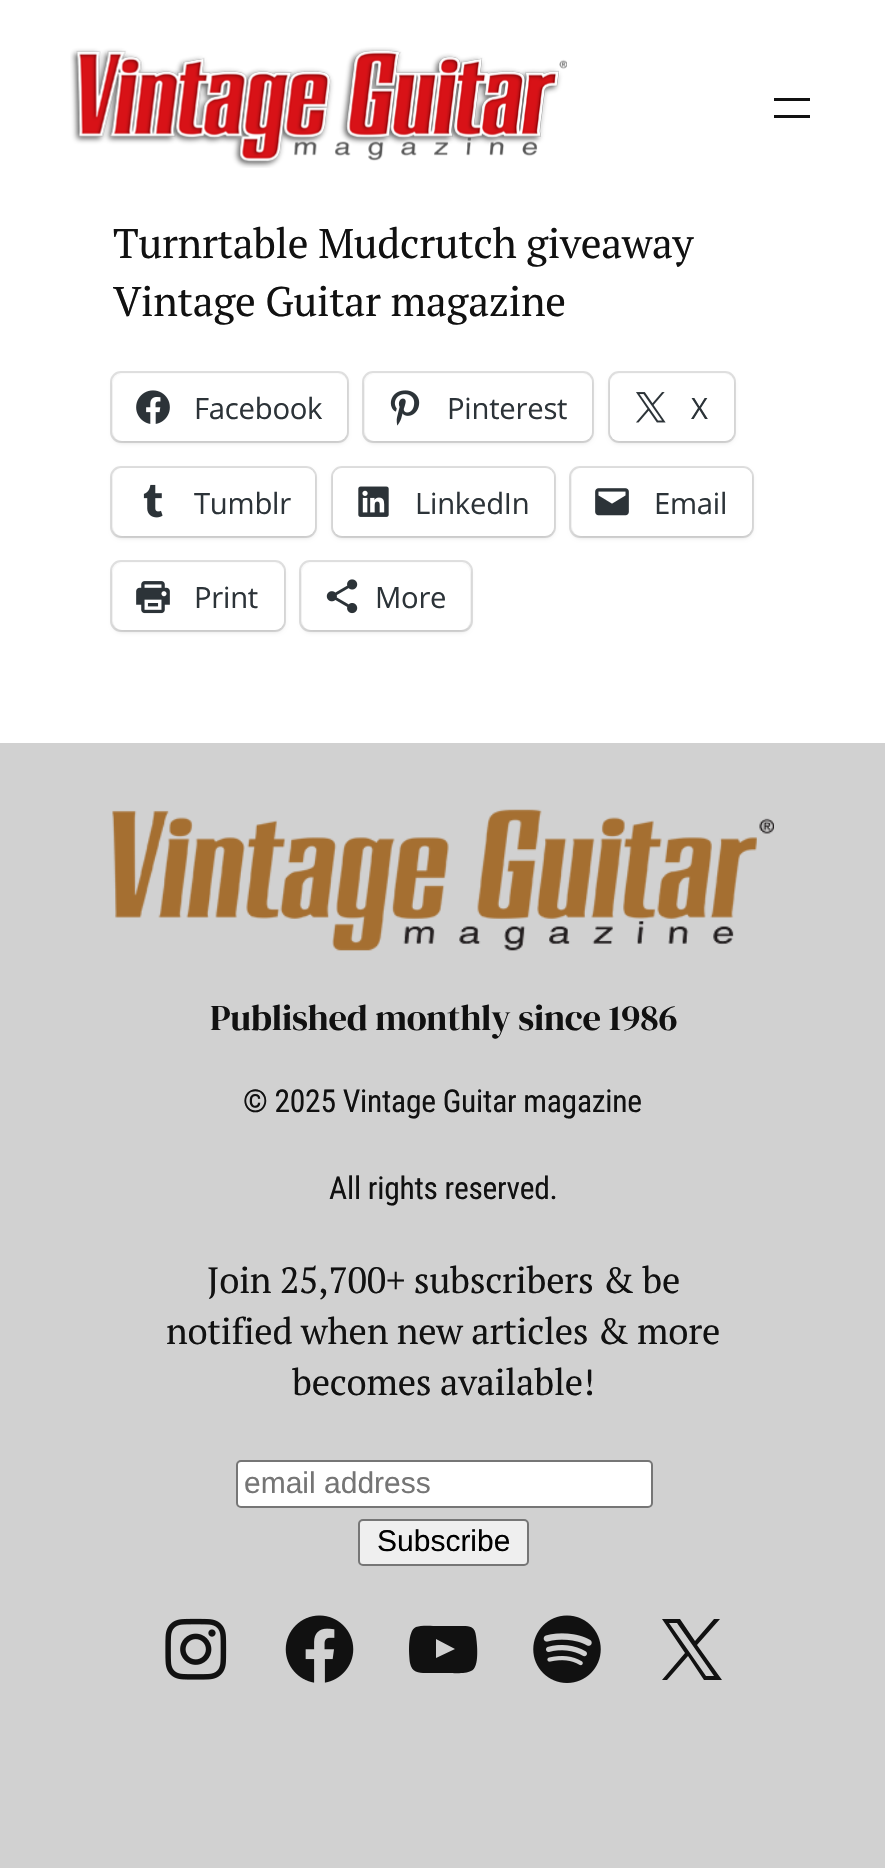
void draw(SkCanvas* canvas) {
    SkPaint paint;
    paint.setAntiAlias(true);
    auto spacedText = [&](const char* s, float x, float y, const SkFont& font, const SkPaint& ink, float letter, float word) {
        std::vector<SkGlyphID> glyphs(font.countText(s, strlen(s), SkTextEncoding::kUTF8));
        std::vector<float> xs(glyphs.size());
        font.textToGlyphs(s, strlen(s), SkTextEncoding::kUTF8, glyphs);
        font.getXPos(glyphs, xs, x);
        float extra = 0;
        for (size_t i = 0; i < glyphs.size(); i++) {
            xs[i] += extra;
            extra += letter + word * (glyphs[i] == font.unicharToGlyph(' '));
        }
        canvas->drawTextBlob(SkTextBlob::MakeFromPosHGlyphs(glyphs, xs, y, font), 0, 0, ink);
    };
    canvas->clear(0xFFFFFFFF);
    canvas->drawImageRect(SkImages::DeferredFromEncodedData(SkData::MakeFromFileName("img1.png")), SkRect::MakeXYWH(70, 47, 497, 121), SkSamplingOptions());
    paint.setColor(0xFF111111);
    canvas->drawRect(SkRect::MakeXYWH(774, 98, 36, 3), paint);
    canvas->drawRect(SkRect::MakeXYWH(774, 115, 36, 3), paint);
    SkFont font1(fontMgr->matchFamilyStyle("PT Serif", SkFontStyle::Normal()), 41.4f);
    font1.setSubpixel(true);
    spacedText("Turnrtable Mudcrutch giveaway", 113, 258, font1, paint, -0.25f, 0);
    spacedText("Vintage Guitar magazine", 113, 316, font1, paint, -0.25f, 0);
    paint.setStyle(SkPaint::kStroke_Style);
    paint.setStrokeWidth(2);
    paint.setColor(0xFFE0E0E0);
    canvas->drawRoundRect(SkRect::MakeXYWH(111, 372, 237, 70), 10, 10, paint);
    paint.setStyle(SkPaint::kFill_Style);
    paint.setColor(0x1F000000);
    paint.setMaskFilter(SkMaskFilter::MakeBlur(kNormal_SkBlurStyle, 2));
    canvas->drawRoundRect(SkRect::MakeXYWH(113, 376, 234, 67), 9, 9, paint);
    paint.setMaskFilter(nullptr);
    paint.setColor(0xFFFFFFFF);
    canvas->drawRoundRect(SkRect::MakeXYWH(113, 374, 234, 67), 9, 9, paint);
    canvas->drawImageRect(SkImages::DeferredFromEncodedData(SkData::MakeFromFileName("img2.png")), SkRect::MakeXYWH(136, 390, 34, 34), SkSamplingOptions());
    SkFont font2(fontMgr->matchFamilyStyle("Open Sans", SkFontStyle::Normal()), 29.25f);
    font2.setSubpixel(true);
    paint.setColor(0xFF2C3338);
    spacedText("Facebook", 194, 419, font2, paint, -0.25f, 0);
    paint.setStyle(SkPaint::kStroke_Style);
    paint.setColor(0xFFE0E0E0);
    canvas->drawRoundRect(SkRect::MakeXYWH(363, 372, 230, 70), 10, 10, paint);
    paint.setStyle(SkPaint::kFill_Style);
    paint.setColor(0x1F000000);
    paint.setMaskFilter(SkMaskFilter::MakeBlur(kNormal_SkBlurStyle, 2));
    canvas->drawRoundRect(SkRect::MakeXYWH(365, 376, 227, 67), 9, 9, paint);
    paint.setMaskFilter(nullptr);
    paint.setColor(0xFFFFFFFF);
    canvas->drawRoundRect(SkRect::MakeXYWH(365, 374, 227, 67), 9, 9, paint);
    canvas->drawImageRect(SkImages::DeferredFromEncodedData(SkData::MakeFromFileName("img3.png")), SkRect::MakeXYWH(390, 390, 30, 36), SkSamplingOptions());
    paint.setColor(0xFF2C3338);
    spacedText("Pinterest", 447, 419, font2, paint, -0.25f, 0);
    paint.setStyle(SkPaint::kStroke_Style);
    paint.setColor(0xFFE0E0E0);
    canvas->drawRoundRect(SkRect::MakeXYWH(609, 372, 126, 70), 10, 10, paint);
    paint.setStyle(SkPaint::kFill_Style);
    paint.setColor(0x1F000000);
    paint.setMaskFilter(SkMaskFilter::MakeBlur(kNormal_SkBlurStyle, 2));
    canvas->drawRoundRect(SkRect::MakeXYWH(610, 376, 124, 67), 9, 9, paint);
    paint.setMaskFilter(nullptr);
    paint.setColor(0xFFFFFFFF);
    canvas->drawRoundRect(SkRect::MakeXYWH(610, 374, 124, 67), 9, 9, paint);
    canvas->drawImageRect(SkImages::DeferredFromEncodedData(SkData::MakeFromFileName("img4.png")), SkRect::MakeXYWH(636, 392, 30, 31), SkSamplingOptions());
    paint.setColor(0xFF2C3338);
    spacedText("X", 691, 419, font2, paint, -0.25f, 0);
    paint.setStyle(SkPaint::kStroke_Style);
    paint.setColor(0xFFE0E0E0);
    canvas->drawRoundRect(SkRect::MakeXYWH(111, 467, 205, 70), 10, 10, paint);
    paint.setStyle(SkPaint::kFill_Style);
    paint.setColor(0x1F000000);
    paint.setMaskFilter(SkMaskFilter::MakeBlur(kNormal_SkBlurStyle, 2));
    canvas->drawRoundRect(SkRect::MakeXYWH(113, 470, 202, 68), 9, 9, paint);
    paint.setMaskFilter(nullptr);
    paint.setColor(0xFFFFFFFF);
    canvas->drawRoundRect(SkRect::MakeXYWH(113, 468, 202, 68), 9, 9, paint);
    canvas->drawImageRect(SkImages::DeferredFromEncodedData(SkData::MakeFromFileName("img5.png")), SkRect::MakeXYWH(143, 484, 20, 34), SkSamplingOptions());
    paint.setColor(0xFF2C3338);
    spacedText("Tumblr", 194, 514, font2, paint, -0.25f, 0);
    paint.setStyle(SkPaint::kStroke_Style);
    paint.setColor(0xFFE0E0E0);
    canvas->drawRoundRect(SkRect::MakeXYWH(332, 467, 223, 70), 10, 10, paint);
    paint.setStyle(SkPaint::kFill_Style);
    paint.setColor(0x1F000000);
    paint.setMaskFilter(SkMaskFilter::MakeBlur(kNormal_SkBlurStyle, 2));
    canvas->drawRoundRect(SkRect::MakeXYWH(333, 470, 221, 68), 9, 9, paint);
    paint.setMaskFilter(nullptr);
    paint.setColor(0xFFFFFFFF);
    canvas->drawRoundRect(SkRect::MakeXYWH(333, 468, 221, 68), 9, 9, paint);
    canvas->drawImageRect(SkImages::DeferredFromEncodedData(SkData::MakeFromFileName("img6.png")), SkRect::MakeXYWH(358, 486, 31, 31), SkSamplingOptions());
    paint.setColor(0xFF2C3338);
    spacedText("LinkedIn", 415, 514, font2, paint, -0.25f, 0);
    paint.setStyle(SkPaint::kStroke_Style);
    paint.setColor(0xFFE0E0E0);
    canvas->drawRoundRect(SkRect::MakeXYWH(570, 467, 183, 70), 10, 10, paint);
    paint.setStyle(SkPaint::kFill_Style);
    paint.setColor(0x1F000000);
    paint.setMaskFilter(SkMaskFilter::MakeBlur(kNormal_SkBlurStyle, 2));
    canvas->drawRoundRect(SkRect::MakeXYWH(572, 470, 180, 68), 9, 9, paint);
    paint.setMaskFilter(nullptr);
    paint.setColor(0xFFFFFFFF);
    canvas->drawRoundRect(SkRect::MakeXYWH(572, 468, 180, 68), 9, 9, paint);
    canvas->drawImageRect(SkImages::DeferredFromEncodedData(SkData::MakeFromFileName("img7.png")), SkRect::MakeXYWH(595, 488, 34, 28), SkSamplingOptions());
    paint.setColor(0xFF2C3338);
    spacedText("Email", 654, 514, font2, paint, -0.25f, 0);
    paint.setStyle(SkPaint::kStroke_Style);
    paint.setColor(0xFFE0E0E0);
    canvas->drawRoundRect(SkRect::MakeXYWH(111, 561, 174, 70), 10, 10, paint);
    paint.setStyle(SkPaint::kFill_Style);
    paint.setColor(0x1F000000);
    paint.setMaskFilter(SkMaskFilter::MakeBlur(kNormal_SkBlurStyle, 2));
    canvas->drawRoundRect(SkRect::MakeXYWH(113, 565, 171, 67), 9, 9, paint);
    paint.setMaskFilter(nullptr);
    paint.setColor(0xFFFFFFFF);
    canvas->drawRoundRect(SkRect::MakeXYWH(113, 563, 171, 67), 9, 9, paint);
    canvas->drawImageRect(SkImages::DeferredFromEncodedData(SkData::MakeFromFileName("img8.png")), SkRect::MakeXYWH(136, 581, 34, 33), SkSamplingOptions());
    paint.setColor(0xFF2C3338);
    spacedText("Print", 194, 608, font2, paint, -0.25f, 0);
    paint.setStyle(SkPaint::kStroke_Style);
    paint.setColor(0xFFE0E0E0);
    canvas->drawRoundRect(SkRect::MakeXYWH(300, 561, 172, 70), 10, 10, paint);
    paint.setStyle(SkPaint::kFill_Style);
    paint.setColor(0x1F000000);
    paint.setMaskFilter(SkMaskFilter::MakeBlur(kNormal_SkBlurStyle, 2));
    canvas->drawRoundRect(SkRect::MakeXYWH(302, 565, 168, 67), 9, 9, paint);
    paint.setMaskFilter(nullptr);
    paint.setColor(0xFFFFFFFF);
    canvas->drawRoundRect(SkRect::MakeXYWH(302, 563, 168, 67), 9, 9, paint);
    canvas->drawImageRect(SkImages::DeferredFromEncodedData(SkData::MakeFromFileName("img9.png")), SkRect::MakeXYWH(326, 579, 32, 35), SkSamplingOptions());
    paint.setColor(0xFF2C3338);
    spacedText("More", 375, 608, font2, paint, -0.25f, 0);
    paint.setColor(0xFFD1D1D1);
    canvas->drawRect(SkRect::MakeXYWH(0, 743, 885, 1125), paint);
    canvas->drawImageRect(SkImages::DeferredFromEncodedData(SkData::MakeFromFileName("img10.png")), SkRect::MakeXYWH(112, 809, 662, 142), SkSamplingOptions());
    SkFont font3(fontMgr->matchFamilyStyle("DM Serif Display", SkFontStyle::Normal()), 36.5f);
    font3.setSubpixel(true);
    paint.setColor(0xFF111111);
    spacedText("Published monthly since 1986", 210, 1030, font3, paint, -0.25f, 0);
    SkFont font4(fontMgr->matchFamilyStyle("Roboto Condensed", SkFontStyle::Normal()), 31.5f);
    font4.setSubpixel(true);
    spacedText("© 2025 Vintage Guitar magazine", 243, 1112, font4, paint, -0.25f, 0);
    spacedText("All rights reserved.", 329, 1199, font4, paint, -0.25f, 0);
    SkFont font5(fontMgr->matchFamilyStyle("PT Serif", SkFontStyle::Normal()), 36.5f);
    font5.setSubpixel(true);
    spacedText("Join 25,700+ subscribers & be", 207, 1293, font5, paint, -0.25f, 0);
    spacedText("notified when new articles & more", 166, 1344, font5, paint, -0.25f, 0);
    spacedText("becomes available!", 292, 1395, font5, paint, -0.25f, 0);
    paint.setColor(0xFFFFFFFF);
    canvas->drawRoundRect(SkRect::MakeXYWH(237, 1461, 415, 46), 4, 4, paint);
    paint.setStyle(SkPaint::kStroke_Style);
    paint.setColor(0xFF767676);
    canvas->drawRoundRect(SkRect::MakeXYWH(237, 1461, 415, 46), 4, 4, paint);
    SkFont font6(fontMgr->matchFamilyStyle("Liberation Sans", SkFontStyle::Normal()), 30);
    font6.setSubpixel(true);
    paint.setStyle(SkPaint::kFill_Style);
    paint.setColor(0xFF757575);
    canvas->drawString("email address", 244, 1493, font6, paint);
    paint.setColor(0xFFEFEFEF);
    canvas->drawRoundRect(SkRect::MakeXYWH(359, 1520, 169, 45), 4, 4, paint);
    paint.setStyle(SkPaint::kStroke_Style);
    paint.setColor(0xFF767676);
    canvas->drawRoundRect(SkRect::MakeXYWH(359, 1520, 169, 45), 4, 4, paint);
    paint.setStyle(SkPaint::kFill_Style);
    paint.setColor(0xFF000000);
    canvas->drawString("Subscribe", 377, 1551, font6, paint);
    canvas->drawImageRect(SkImages::DeferredFromEncodedData(SkData::MakeFromFileName("img11.png")), SkRect::MakeXYWH(165, 1618, 62, 62), SkSamplingOptions());
    canvas->drawImageRect(SkImages::DeferredFromEncodedData(SkData::MakeFromFileName("img12.png")), SkRect::MakeXYWH(285, 1615, 69, 68), SkSamplingOptions());
    paint.setColor(0xFF111111);
    canvas->drawPath(SkPathBuilder().moveTo(476, 1636).cubicTo(475, 1625, 468, 1626, 459, 1626).lineTo(438, 1626).cubicTo(433, 1626, 421, 1625, 416, 1627).cubicTo(407, 1631, 409, 1655, 410, 1663).cubicTo(412, 1674, 421, 1673, 430, 1673).lineTo(448, 1673).cubicTo(454, 1673, 466, 1674, 471, 1671).cubicTo(480, 1668, 477, 1643, 476, 1636).close().moveTo(436, 1658).lineTo(436, 1639).lineTo(455, 1649).close().detach(), paint);
    canvas->drawImageRect(SkImages::DeferredFromEncodedData(SkData::MakeFromFileName("img13.png")), SkRect::MakeXYWH(533, 1615, 68, 68), SkSamplingOptions());
    canvas->drawPath(SkPathBuilder().moveTo(697, 1645).lineTo(720, 1619).lineTo(714, 1619).lineTo(695, 1641).lineTo(680, 1619).lineTo(662, 1619).lineTo(685, 1653).lineTo(662, 1680).lineTo(667, 1680).lineTo(688, 1656).lineTo(704, 1680).lineTo(722, 1680).close().moveTo(690, 1653).lineTo(669, 1623).lineTo(677, 1623).lineTo(714, 1676).lineTo(706, 1676).close().detach(), paint);
}
